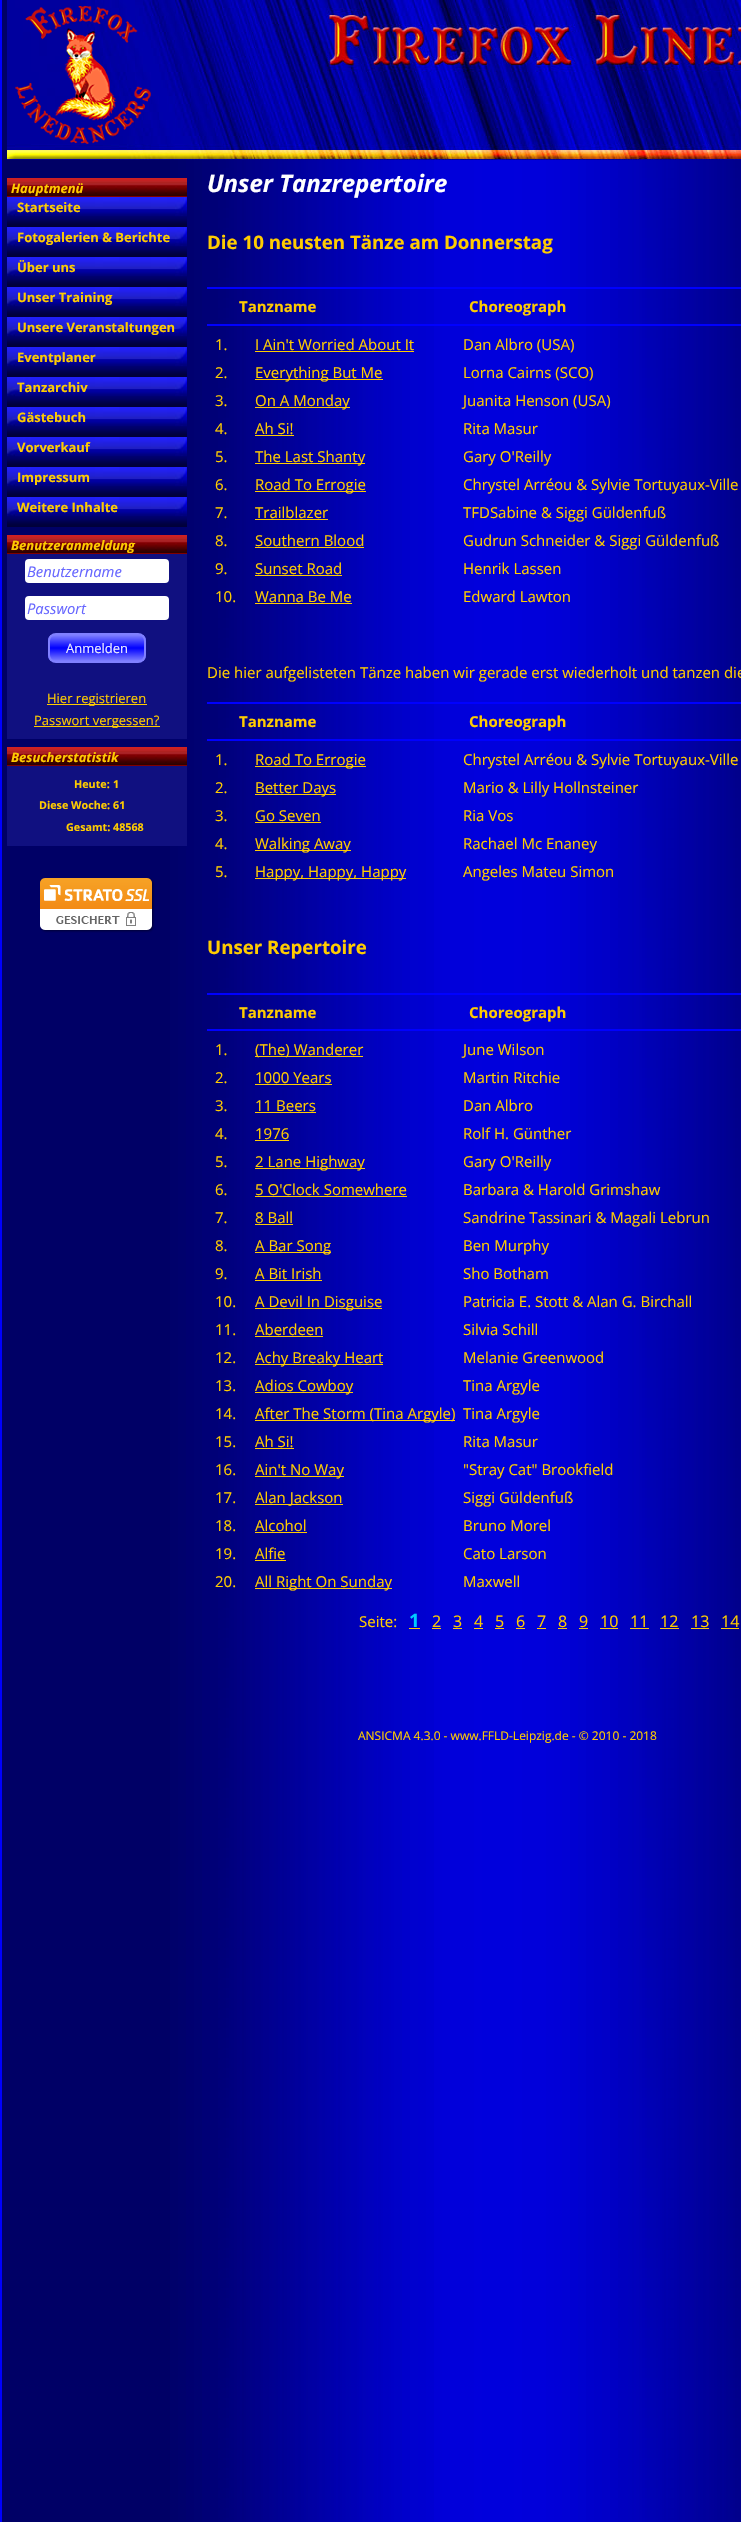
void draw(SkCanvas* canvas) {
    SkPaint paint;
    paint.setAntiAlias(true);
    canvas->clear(0xFF000066);
    canvas->drawImageRect(SkImages::DeferredFromEncodedData(SkData::MakeFromFileName("img1.png")), SkRect::MakeXYWH(170, 160, 571, 2362), SkSamplingOptions());
    paint.setColor(0xFF0000FF);
    canvas->drawRect(SkRect::MakeXYWH(0, 0, 2, 2522), paint);
    canvas->drawImageRect(SkImages::DeferredFromEncodedData(SkData::MakeFromFileName("img2.png")), SkRect::MakeXYWH(7, 0, 734, 160), SkSamplingOptions());
    canvas->drawImageRect(SkImages::DeferredFromEncodedData(SkData::MakeFromFileName("img3.png")), SkRect::MakeXYWH(15, 6, 136, 138), SkSamplingOptions());
    paint.setColor(0xFF800000);
    canvas->drawRect(SkRect::MakeXYWH(7, 196, 180, 1), paint);
    canvas->drawImageRect(SkImages::DeferredFromEncodedData(SkData::MakeFromFileName("img4.png")), SkRect::MakeXYWH(7, 178, 180, 18), SkSamplingOptions());
    SkFont font1(fontMgr->matchFamilyStyle("Open Sans", SkFontStyle::BoldItalic()), 13);
    font1.setSubpixel(true);
    paint.setColor(0xFFFFCC00);
    canvas->drawString("Hauptmenü", 11, 193, font1, paint);
    canvas->drawImageRect(SkImages::DeferredFromEncodedData(SkData::MakeFromFileName("img5.png")), SkRect::MakeXYWH(7, 197, 180, 30), SkSamplingOptions());
    SkFont font2(fontMgr->matchFamilyStyle("Open Sans", SkFontStyle::Bold()), 13);
    font2.setSubpixel(true);
    canvas->drawString("Startseite", 17, 212, font2, paint);
    canvas->drawImageRect(SkImages::DeferredFromEncodedData(SkData::MakeFromFileName("img5.png")), SkRect::MakeXYWH(7, 227, 180, 30), SkSamplingOptions());
    canvas->drawString("Fotogalerien & Berichte", 17, 242, font2, paint);
    canvas->drawImageRect(SkImages::DeferredFromEncodedData(SkData::MakeFromFileName("img5.png")), SkRect::MakeXYWH(7, 257, 180, 30), SkSamplingOptions());
    canvas->drawString("Über uns", 17, 272, font2, paint);
    canvas->drawImageRect(SkImages::DeferredFromEncodedData(SkData::MakeFromFileName("img5.png")), SkRect::MakeXYWH(7, 287, 180, 30), SkSamplingOptions());
    canvas->drawString("Unser Training", 17, 302, font2, paint);
    canvas->drawImageRect(SkImages::DeferredFromEncodedData(SkData::MakeFromFileName("img5.png")), SkRect::MakeXYWH(7, 317, 180, 30), SkSamplingOptions());
    canvas->drawString("Unsere Veranstaltungen", 17, 332, font2, paint);
    canvas->drawImageRect(SkImages::DeferredFromEncodedData(SkData::MakeFromFileName("img5.png")), SkRect::MakeXYWH(7, 347, 180, 30), SkSamplingOptions());
    canvas->drawString("Eventplaner", 17, 362, font2, paint);
    canvas->drawImageRect(SkImages::DeferredFromEncodedData(SkData::MakeFromFileName("img5.png")), SkRect::MakeXYWH(7, 377, 180, 30), SkSamplingOptions());
    canvas->drawString("Tanzarchiv", 17, 392, font2, paint);
    canvas->drawImageRect(SkImages::DeferredFromEncodedData(SkData::MakeFromFileName("img5.png")), SkRect::MakeXYWH(7, 407, 180, 30), SkSamplingOptions());
    canvas->drawString("Gästebuch", 17, 422, font2, paint);
    canvas->drawImageRect(SkImages::DeferredFromEncodedData(SkData::MakeFromFileName("img5.png")), SkRect::MakeXYWH(7, 437, 180, 30), SkSamplingOptions());
    canvas->drawString("Vorverkauf", 17, 452, font2, paint);
    canvas->drawImageRect(SkImages::DeferredFromEncodedData(SkData::MakeFromFileName("img5.png")), SkRect::MakeXYWH(7, 467, 180, 30), SkSamplingOptions());
    canvas->drawString("Impressum", 17, 482, font2, paint);
    canvas->drawImageRect(SkImages::DeferredFromEncodedData(SkData::MakeFromFileName("img6.png")), SkRect::MakeXYWH(7, 497, 180, 30), SkSamplingOptions());
    canvas->drawString("Weitere Inhalte", 17, 512, font2, paint);
    paint.setColor(0xFF101080);
    canvas->drawRect(SkRect::MakeXYWH(7, 554, 180, 185), paint);
    paint.setColor(0xFF800000);
    canvas->drawRect(SkRect::MakeXYWH(7, 553, 180, 1), paint);
    canvas->drawImageRect(SkImages::DeferredFromEncodedData(SkData::MakeFromFileName("img4.png")), SkRect::MakeXYWH(7, 535, 180, 18), SkSamplingOptions());
    paint.setColor(0xFFFFCC00);
    canvas->drawString("Benutzeranmeldung", 11, 550, font1, paint);
    paint.setColor(0xFFFFFFFF);
    canvas->drawRoundRect(SkRect::MakeXYWH(25, 559, 144, 24), 4, 4, paint);
    SkFont font3(fontMgr->matchFamilyStyle("Open Sans", SkFontStyle::Italic()), 14.75f);
    font3.setSubpixel(true);
    paint.setColor(0xFF6666FF);
    canvas->drawString("Benutzername", 27, 577, font3, paint);
    paint.setColor(0xFFFFFFFF);
    canvas->drawRoundRect(SkRect::MakeXYWH(25, 596, 144, 24), 4, 4, paint);
    paint.setColor(0xFF6666FF);
    canvas->drawString("Passwort", 27, 614, font3, paint);
    canvas->save();
    canvas->clipPath(SkPathBuilder().moveTo(56, 633).lineTo(138, 633).cubicTo(142.5f, 633, 146, 636.5f, 146, 641).lineTo(146, 655).cubicTo(146, 659.5f, 142.5f, 663, 138, 663).lineTo(56, 663).cubicTo(51.5f, 663, 48, 659.5f, 48, 655).lineTo(48, 641).cubicTo(48, 636.5f, 51.5f, 633, 56, 633).close().detach(), true);
    {
        const SkColor colors[] = {0xFF8080FF, 0xFF0000FF, 0xFF8080FF};
        const float stops[] = {0, 0.5f, 1};
        const SkPoint ends[] = {{97, 635}, {97, 661}};
        paint.setShader(SkGradientShader::MakeLinear(ends, colors, stops, 3, SkTileMode::kClamp));
        paint.setAlpha(255);
    }
    canvas->drawRect(SkRect::MakeXYWH(48, 635, 98, 26), paint);
    canvas->restore();
    paint.setStyle(SkPaint::kStroke_Style);
    paint.setStrokeWidth(2);
    paint.setShader(nullptr);
    paint.setColor(0xFF8080FF);
    canvas->drawRoundRect(SkRect::MakeXYWH(49, 634, 96, 28), 7, 7, paint);
    SkFont font4(fontMgr->matchFamilyStyle("Open Sans", SkFontStyle::Normal()), 13);
    font4.setSubpixel(true);
    paint.setStyle(SkPaint::kFill_Style);
    paint.setColor(0xFFEEEEFF);
    canvas->drawString("Anmelden", 66, 653, font4, paint);
    paint.setColor(0xFFFFCC00);
    canvas->drawRect(SkRect::MakeXYWH(47, 704, 100, 1), paint);
    canvas->drawString("Hier registrieren", 47, 703, font4, paint);
    canvas->drawRect(SkRect::MakeXYWH(34, 726, 126, 1), paint);
    canvas->drawString("Passwort vergessen?", 34, 725, font4, paint);
    paint.setColor(0xFF101080);
    canvas->drawRect(SkRect::MakeXYWH(7, 766, 180, 80), paint);
    paint.setColor(0xFF800000);
    canvas->drawRect(SkRect::MakeXYWH(7, 765, 180, 1), paint);
    canvas->drawImageRect(SkImages::DeferredFromEncodedData(SkData::MakeFromFileName("img4.png")), SkRect::MakeXYWH(7, 747, 180, 18), SkSamplingOptions());
    paint.setColor(0xFFFFCC00);
    canvas->drawString("Besucherstatistik", 11, 762, font1, paint);
    SkFont font5(fontMgr->matchFamilyStyle("Open Sans", SkFontStyle::Bold()), 10.75f);
    font5.setSubpixel(true);
    canvas->drawString("Heute:", 74, 788, font5, paint);
    canvas->drawString("1", 113, 788, font5, paint);
    canvas->drawString("Diese Woche:", 39, 809, font5, paint);
    canvas->drawString("61", 113, 809, font5, paint);
    canvas->drawString("Gesamt:", 66, 831, font5, paint);
    canvas->drawString("48568", 113, 831, font5, paint);
    canvas->drawImageRect(SkImages::DeferredFromEncodedData(SkData::MakeFromFileName("img7.png")), SkRect::MakeXYWH(40, 878, 115, 55), SkSamplingOptions());
    SkFont font6(fontMgr->matchFamilyStyle("Open Sans", SkFontStyle::BoldItalic()), 24);
    font6.setSubpixel(true);
    paint.setColor(0xFFFFFFFF);
    canvas->drawString("Unser Tanzrepertoire", 207, 192, font6, paint);
    SkFont font7(fontMgr->matchFamilyStyle("Open Sans", SkFontStyle::Bold()), 18.7f);
    font7.setSubpixel(true);
    paint.setColor(0xFFFFCC00);
    canvas->drawString("Die 10 neusten Tänze am Donnerstag", 207, 249, font7, paint);
    paint.setColor(0xFF0000FF);
    canvas->drawRect(SkRect::MakeXYWH(207, 287, 534, 2), paint);
    canvas->drawRect(SkRect::MakeXYWH(207, 324, 534, 2), paint);
    SkFont font8(fontMgr->matchFamilyStyle("Open Sans", SkFontStyle::Bold()), 15);
    font8.setSubpixel(true);
    paint.setColor(0xFFFFCC00);
    canvas->drawString("Tanzname", 239, 312, font8, paint);
    canvas->drawString("Choreograph", 469, 312, font8, paint);
    SkFont font9(fontMgr->matchFamilyStyle("Open Sans", SkFontStyle::Normal()), 15);
    font9.setSubpixel(true);
    canvas->drawString("1.", 215, 350, font9, paint);
    canvas->drawString("I Ain't Worried About It", 255, 350, font9, paint);
    canvas->drawRect(SkRect::MakeXYWH(255, 351, 159, 1), paint);
    canvas->drawString("Dan Albro (USA)", 463, 350, font9, paint);
    canvas->drawString("2.", 215, 378, font9, paint);
    canvas->drawRect(SkRect::MakeXYWH(255, 379, 128, 1), paint);
    canvas->drawString("Everything But Me", 255, 378, font9, paint);
    canvas->drawString("Lorna Cairns (SCO)", 463, 378, font9, paint);
    canvas->drawString("3.", 215, 406, font9, paint);
    canvas->drawRect(SkRect::MakeXYWH(255, 407, 95, 1), paint);
    canvas->drawString("On A Monday", 255, 406, font9, paint);
    canvas->drawString("Juanita Henson (USA)", 463, 406, font9, paint);
    canvas->drawString("4.", 215, 434, font9, paint);
    canvas->drawString("Ah Si!", 255, 434, font9, paint);
    canvas->drawRect(SkRect::MakeXYWH(255, 435, 39, 1), paint);
    canvas->drawString("Rita Masur", 463, 434, font9, paint);
    canvas->drawString("5.", 215, 462, font9, paint);
    canvas->drawRect(SkRect::MakeXYWH(255, 463, 110, 1), paint);
    canvas->drawString("The Last Shanty", 255, 462, font9, paint);
    canvas->drawString("Gary O'Reilly", 463, 462, font9, paint);
    canvas->drawString("6.", 215, 490, font9, paint);
    canvas->drawRect(SkRect::MakeXYWH(255, 491, 111, 1), paint);
    canvas->drawString("Road To Errogie", 255, 490, font9, paint);
    canvas->drawString("Chrystel Arréou & Sylvie Tortuyaux-Ville", 463, 490, font9, paint);
    canvas->drawString("7.", 215, 518, font9, paint);
    canvas->drawString("Trailblazer", 255, 518, font9, paint);
    canvas->drawRect(SkRect::MakeXYWH(255, 519, 73, 1), paint);
    canvas->drawString("TFDSabine & Siggi Güldenfuß", 463, 518, font9, paint);
    canvas->drawString("8.", 215, 546, font9, paint);
    canvas->drawString("Southern Blood", 255, 546, font9, paint);
    canvas->drawRect(SkRect::MakeXYWH(255, 547, 109, 1), paint);
    canvas->drawString("Gudrun Schneider & Siggi Güldenfuß", 463, 546, font9, paint);
    canvas->drawString("9.", 215, 574, font9, paint);
    canvas->drawString("Sunset Road", 255, 574, font9, paint);
    canvas->drawRect(SkRect::MakeXYWH(255, 575, 87, 1), paint);
    canvas->drawString("Henrik Lassen", 463, 574, font9, paint);
    canvas->drawString("10.", 215, 602, font9, paint);
    canvas->drawString("Wanna Be Me", 255, 602, font9, paint);
    canvas->drawRect(SkRect::MakeXYWH(255, 603, 97, 1), paint);
    canvas->drawString("Edward Lawton", 463, 602, font9, paint);
    canvas->drawString("Die hier aufgelisteten Tänze haben wir gerade erst wiederholt und tanzen die", 207, 678, font9, paint);
    paint.setColor(0xFF0000FF);
    canvas->drawRect(SkRect::MakeXYWH(207, 702, 534, 2), paint);
    canvas->drawRect(SkRect::MakeXYWH(207, 739, 534, 2), paint);
    paint.setColor(0xFFFFCC00);
    canvas->drawString("Tanzname", 239, 727, font8, paint);
    canvas->drawString("Choreograph", 469, 727, font8, paint);
    canvas->drawString("1.", 215, 765, font9, paint);
    canvas->drawRect(SkRect::MakeXYWH(255, 766, 111, 1), paint);
    canvas->drawString("Road To Errogie", 255, 765, font9, paint);
    canvas->drawString("Chrystel Arréou & Sylvie Tortuyaux-Ville", 463, 765, font9, paint);
    canvas->drawString("2.", 215, 793, font9, paint);
    canvas->drawRect(SkRect::MakeXYWH(255, 794, 81, 1), paint);
    canvas->drawString("Better Days", 255, 793, font9, paint);
    canvas->drawString("Mario & Lilly Hollnsteiner", 463, 793, font9, paint);
    canvas->drawString("3.", 215, 821, font9, paint);
    canvas->drawString("Go Seven", 255, 821, font9, paint);
    canvas->drawRect(SkRect::MakeXYWH(255, 822, 66, 1), paint);
    canvas->drawString("Ria Vos", 463, 821, font9, paint);
    canvas->drawString("4.", 215, 849, font9, paint);
    canvas->drawRect(SkRect::MakeXYWH(255, 850, 96, 1), paint);
    canvas->drawString("Walking Away", 255, 849, font9, paint);
    canvas->drawString("Rachael Mc Enaney", 463, 849, font9, paint);
    canvas->drawString("5.", 215, 877, font9, paint);
    canvas->drawRect(SkRect::MakeXYWH(255, 878, 151, 1), paint);
    canvas->drawString("Happy, Happy, Happy", 255, 877, font9, paint);
    canvas->drawString("Angeles Mateu Simon", 463, 877, font9, paint);
    canvas->drawString("Unser Repertoire", 207, 954, font7, paint);
    paint.setColor(0xFF0000FF);
    canvas->drawRect(SkRect::MakeXYWH(207, 993, 534, 2), paint);
    canvas->drawRect(SkRect::MakeXYWH(207, 1029, 534, 2), paint);
    paint.setColor(0xFFFFCC00);
    canvas->drawString("Tanzname", 239, 1018, font8, paint);
    canvas->drawString("Choreograph", 469, 1018, font8, paint);
    canvas->drawString("1.", 215, 1055, font9, paint);
    canvas->drawRect(SkRect::MakeXYWH(255, 1056, 108, 1), paint);
    canvas->drawString("(The) Wanderer", 255, 1055, font9, paint);
    canvas->drawString("June Wilson", 463, 1055, font9, paint);
    canvas->drawString("2.", 215, 1083, font9, paint);
    canvas->drawString("1000 Years", 255, 1083, font9, paint);
    canvas->drawRect(SkRect::MakeXYWH(255, 1084, 77, 1), paint);
    canvas->drawString("Martin Ritchie", 463, 1083, font9, paint);
    canvas->drawString("3.", 215, 1111, font9, paint);
    canvas->drawString("11 Beers", 255, 1111, font9, paint);
    canvas->drawRect(SkRect::MakeXYWH(255, 1112, 61, 1), paint);
    canvas->drawString("Dan Albro", 463, 1111, font9, paint);
    canvas->drawString("4.", 215, 1139, font9, paint);
    canvas->drawString("1976", 255, 1139, font9, paint);
    canvas->drawRect(SkRect::MakeXYWH(255, 1140, 34, 1), paint);
    canvas->drawString("Rolf H. Günther", 463, 1139, font9, paint);
    canvas->drawString("5.", 215, 1167, font9, paint);
    canvas->drawRect(SkRect::MakeXYWH(255, 1168, 110, 1), paint);
    canvas->drawString("2 Lane Highway", 255, 1167, font9, paint);
    canvas->drawString("Gary O'Reilly", 463, 1167, font9, paint);
    canvas->drawString("6.", 215, 1195, font9, paint);
    canvas->drawString("5 O'Clock Somewhere", 255, 1195, font9, paint);
    canvas->drawRect(SkRect::MakeXYWH(255, 1196, 152, 1), paint);
    canvas->drawString("Barbara & Harold Grimshaw", 463, 1195, font9, paint);
    canvas->drawString("7.", 215, 1223, font9, paint);
    canvas->drawString("8 Ball", 255, 1223, font9, paint);
    canvas->drawRect(SkRect::MakeXYWH(255, 1224, 38, 1), paint);
    canvas->drawString("Sandrine Tassinari & Magali Lebrun", 463, 1223, font9, paint);
    canvas->drawString("8.", 215, 1251, font9, paint);
    canvas->drawRect(SkRect::MakeXYWH(255, 1252, 76, 1), paint);
    canvas->drawString("A Bar Song", 255, 1251, font9, paint);
    canvas->drawString("Ben Murphy", 463, 1251, font9, paint);
    canvas->drawString("9.", 215, 1279, font9, paint);
    canvas->drawString("A Bit Irish", 255, 1279, font9, paint);
    canvas->drawRect(SkRect::MakeXYWH(255, 1280, 67, 1), paint);
    canvas->drawString("Sho Botham", 463, 1279, font9, paint);
    canvas->drawString("10.", 215, 1307, font9, paint);
    canvas->drawRect(SkRect::MakeXYWH(255, 1308, 127, 1), paint);
    canvas->drawString("A Devil In Disguise", 255, 1307, font9, paint);
    canvas->drawString("Patricia E. Stott & Alan G. Birchall", 463, 1307, font9, paint);
    canvas->drawString("11.", 215, 1335, font9, paint);
    canvas->drawString("Aberdeen", 255, 1335, font9, paint);
    canvas->drawRect(SkRect::MakeXYWH(255, 1336, 68, 1), paint);
    canvas->drawString("Silvia Schill", 463, 1335, font9, paint);
    canvas->drawString("12.", 215, 1363, font9, paint);
    canvas->drawRect(SkRect::MakeXYWH(255, 1364, 128, 1), paint);
    canvas->drawString("Achy Breaky Heart", 255, 1363, font9, paint);
    canvas->drawString("Melanie Greenwood", 463, 1363, font9, paint);
    canvas->drawString("13.", 215, 1391, font9, paint);
    canvas->drawRect(SkRect::MakeXYWH(255, 1392, 98, 1), paint);
    canvas->drawString("Adios Cowboy", 255, 1391, font9, paint);
    canvas->drawString("Tina Argyle", 463, 1391, font9, paint);
    canvas->drawString("14.", 215, 1419, font9, paint);
    canvas->drawRect(SkRect::MakeXYWH(255, 1420, 200, 1), paint);
    canvas->drawString("After The Storm (Tina Argyle)", 255, 1419, font9, paint);
    canvas->drawString("Tina Argyle", 463, 1419, font9, paint);
    canvas->drawString("15.", 215, 1447, font9, paint);
    canvas->drawString("Ah Si!", 255, 1447, font9, paint);
    canvas->drawRect(SkRect::MakeXYWH(255, 1448, 39, 1), paint);
    canvas->drawString("Rita Masur", 463, 1447, font9, paint);
    canvas->drawString("16.", 215, 1475, font9, paint);
    canvas->drawRect(SkRect::MakeXYWH(255, 1476, 89, 1), paint);
    canvas->drawString("Ain't No Way", 255, 1475, font9, paint);
    canvas->drawString("\"Stray Cat\" Brookfield", 463, 1475, font9, paint);
    canvas->drawString("17.", 215, 1503, font9, paint);
    canvas->drawRect(SkRect::MakeXYWH(255, 1504, 88, 1), paint);
    canvas->drawString("Alan Jackson", 255, 1503, font9, paint);
    canvas->drawString("Siggi Güldenfuß", 463, 1503, font9, paint);
    canvas->drawString("18.", 215, 1531, font9, paint);
    canvas->drawString("Alcohol", 255, 1531, font9, paint);
    canvas->drawRect(SkRect::MakeXYWH(255, 1532, 52, 1), paint);
    canvas->drawString("Bruno Morel", 463, 1531, font9, paint);
    canvas->drawString("19.", 215, 1559, font9, paint);
    canvas->drawString("Alfie", 255, 1559, font9, paint);
    canvas->drawRect(SkRect::MakeXYWH(255, 1560, 31, 1), paint);
    canvas->drawString("Cato Larson", 463, 1559, font9, paint);
    canvas->drawString("20.", 215, 1587, font9, paint);
    canvas->drawRect(SkRect::MakeXYWH(255, 1588, 137, 1), paint);
    canvas->drawString("All Right On Sunday", 255, 1587, font9, paint);
    canvas->drawString("Maxwell", 463, 1587, font9, paint);
    canvas->drawString("Seite:", 359, 1627, font9, paint);
    paint.setColor(0xFF00CCFF);
    canvas->drawString("1", 409, 1627, font7, paint);
    paint.setColor(0xFFFFCC00);
    canvas->drawRect(SkRect::MakeXYWH(409, 1628, 11, 1), paint);
    SkFont font10(fontMgr->matchFamilyStyle("Open Sans", SkFontStyle::Normal()), 16);
    font10.setSubpixel(true);
    canvas->drawString("2", 432, 1627, font10, paint);
    canvas->drawRect(SkRect::MakeXYWH(432, 1628, 9, 1), paint);
    canvas->drawString("3", 453, 1627, font10, paint);
    canvas->drawRect(SkRect::MakeXYWH(453, 1628, 9, 1), paint);
    canvas->drawString("4", 474, 1627, font10, paint);
    canvas->drawRect(SkRect::MakeXYWH(474, 1628, 9, 1), paint);
    canvas->drawString("5", 495, 1627, font10, paint);
    canvas->drawRect(SkRect::MakeXYWH(495, 1628, 9, 1), paint);
    canvas->drawString("6", 516, 1627, font10, paint);
    canvas->drawRect(SkRect::MakeXYWH(516, 1628, 9, 1), paint);
    canvas->drawString("7", 537, 1627, font10, paint);
    canvas->drawRect(SkRect::MakeXYWH(537, 1628, 9, 1), paint);
    canvas->drawString("8", 558, 1627, font10, paint);
    canvas->drawRect(SkRect::MakeXYWH(558, 1628, 9, 1), paint);
    canvas->drawString("9", 579, 1627, font10, paint);
    canvas->drawRect(SkRect::MakeXYWH(579, 1628, 9, 1), paint);
    canvas->drawString("10", 600, 1627, font10, paint);
    canvas->drawRect(SkRect::MakeXYWH(600, 1628, 18, 1), paint);
    canvas->drawString("11", 630, 1627, font10, paint);
    canvas->drawRect(SkRect::MakeXYWH(630, 1628, 19, 1), paint);
    canvas->drawString("12", 660, 1627, font10, paint);
    canvas->drawRect(SkRect::MakeXYWH(660, 1628, 19, 1), paint);
    canvas->drawString("13", 691, 1627, font10, paint);
    canvas->drawRect(SkRect::MakeXYWH(691, 1628, 18, 1), paint);
    canvas->drawString("14", 721, 1627, font10, paint);
    canvas->drawRect(SkRect::MakeXYWH(721, 1628, 18, 1), paint);
    SkFont font11(fontMgr->matchFamilyStyle("Open Sans", SkFontStyle::Normal()), 12);
    font11.setSubpixel(true);
    canvas->drawString("ANSICMA 4.3.0 - www.FFLD-Leipzig.de - © 2010 - 2018", 358, 1740, font11, paint);
}
